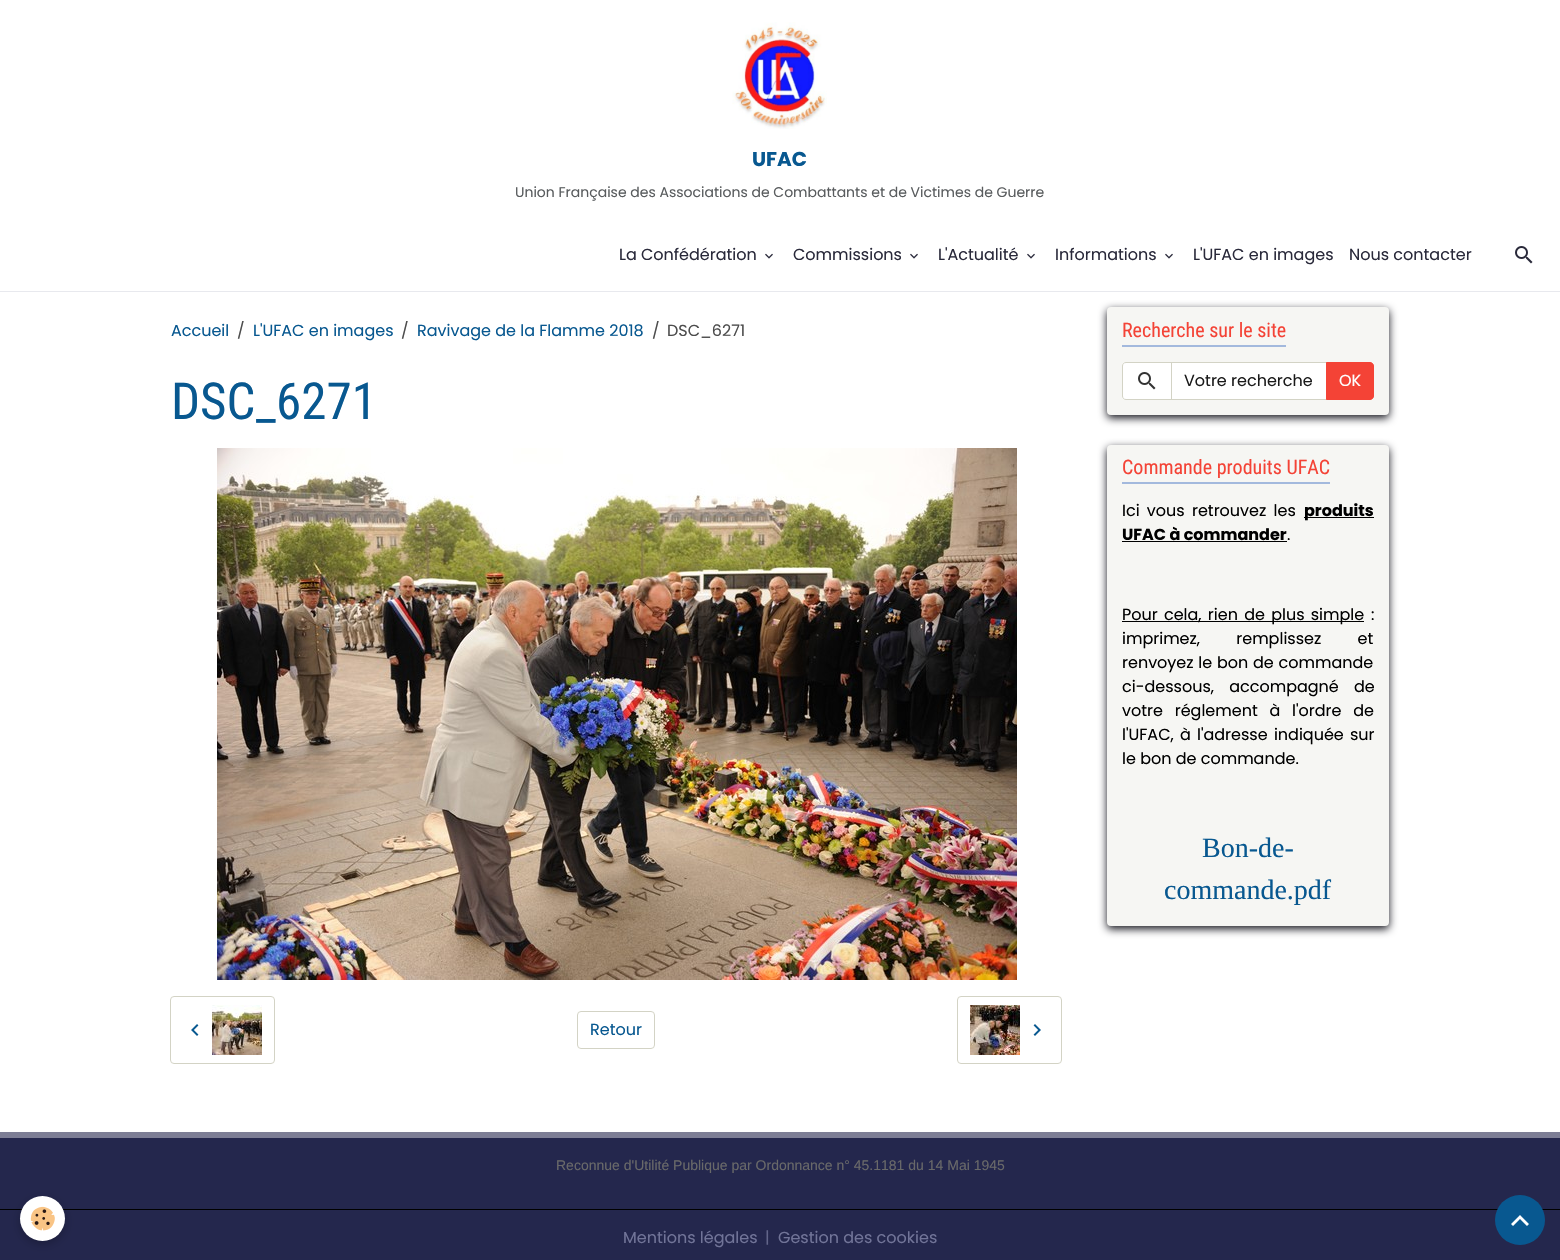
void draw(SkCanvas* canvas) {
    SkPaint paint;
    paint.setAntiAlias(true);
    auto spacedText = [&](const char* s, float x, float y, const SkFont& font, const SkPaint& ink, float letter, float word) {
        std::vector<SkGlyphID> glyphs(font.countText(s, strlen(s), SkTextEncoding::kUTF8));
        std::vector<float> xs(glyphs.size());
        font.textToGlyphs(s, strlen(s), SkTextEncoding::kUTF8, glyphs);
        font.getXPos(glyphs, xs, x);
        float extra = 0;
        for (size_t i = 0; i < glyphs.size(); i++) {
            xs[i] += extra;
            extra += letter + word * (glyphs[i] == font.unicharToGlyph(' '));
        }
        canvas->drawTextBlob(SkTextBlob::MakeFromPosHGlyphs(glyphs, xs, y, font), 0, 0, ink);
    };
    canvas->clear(0xFFFFFFFF);
    canvas->drawImageRect(SkImages::DeferredFromEncodedData(SkData::MakeFromFileName("img1.png")), SkRect::MakeXYWH(732, 22, 95, 107), SkSamplingOptions());
    SkFont font1(fontMgr->matchFamilyStyle("Poppins", SkFontStyle::Bold()), 20);
    font1.setSubpixel(true);
    paint.setColor(0xFF085890);
    canvas->drawString("UFAC", 752, 166, font1, paint);
    SkFont font2(fontMgr->matchFamilyStyle("Poppins", SkFontStyle::Normal()), 14);
    font2.setSubpixel(true);
    paint.setColor(0xFF595C5E);
    canvas->drawString("Union Française des Associations de Combattants et de Victimes de Guerre", 515, 197, font2, paint);
    paint.setColor(0xFFE8E9EE);
    canvas->drawRect(SkRect::MakeXYWH(0, 291, 1560, 1), paint);
    SkFont font3(fontMgr->matchFamilyStyle("Poppins", SkFontStyle::Normal()), 16);
    font3.setSubpixel(true);
    paint.setColor(0xFF29293A);
    canvas->drawString("La Confédération", 619, 260, font3, paint);
    canvas->drawImageRect(SkImages::DeferredFromEncodedData(SkData::MakeFromFileName("img2.png")), SkRect::MakeXYWH(765, 253, 8, 6), SkSamplingOptions());
    canvas->drawString("Commissions", 793, 260, font3, paint);
    canvas->drawImageRect(SkImages::DeferredFromEncodedData(SkData::MakeFromFileName("img2.png")), SkRect::MakeXYWH(910, 253, 8, 6), SkSamplingOptions());
    canvas->drawString("L'Actualité", 938, 260, font3, paint);
    canvas->drawImageRect(SkImages::DeferredFromEncodedData(SkData::MakeFromFileName("img2.png")), SkRect::MakeXYWH(1027, 253, 8, 6), SkSamplingOptions());
    canvas->drawString("Informations", 1055, 260, font3, paint);
    canvas->drawImageRect(SkImages::DeferredFromEncodedData(SkData::MakeFromFileName("img2.png")), SkRect::MakeXYWH(1165, 253, 8, 6), SkSamplingOptions());
    canvas->drawString("L'UFAC en images", 1193, 260, font3, paint);
    canvas->drawString("Nous contacter", 1349, 260, font3, paint);
    canvas->drawImageRect(SkImages::DeferredFromEncodedData(SkData::MakeFromFileName("img3.png")), SkRect::MakeXYWH(1515, 246, 18, 18), SkSamplingOptions());
    paint.setColor(0xFF085890);
    canvas->drawString("Accueil", 171, 336, font3, paint);
    paint.setColor(0xFF4D4D4D);
    canvas->drawString("/", 237, 336, font3, paint);
    paint.setColor(0xFF085890);
    canvas->drawString("L'UFAC en images", 253, 336, font3, paint);
    paint.setColor(0xFF4D4D4D);
    canvas->drawString("/", 401, 336, font3, paint);
    paint.setColor(0xFF085890);
    canvas->drawString("Ravivage de la Flamme 2018", 417, 336, font3, paint);
    paint.setColor(0xFF4D4D4D);
    canvas->drawString("/", 652, 336, font3, paint);
    canvas->drawString("DSC_6271", 667, 336, font3, paint);
    SkFont font4(fontMgr->matchFamilyStyle("Roboto Condensed", SkFontStyle::Normal()), 51);
    font4.setSubpixel(true);
    paint.setColor(0xFF085890);
    canvas->drawString("DSC_6271", 171, 419, font4, paint);
    canvas->drawImageRect(SkImages::DeferredFromEncodedData(SkData::MakeFromFileName("img4.png")), SkRect::MakeXYWH(217, 448, 800, 532), SkSamplingOptions());
    paint.setStyle(SkPaint::kStroke_Style);
    paint.setStrokeWidth(1);
    paint.setColor(0xFFD3D3C5);
    canvas->drawRoundRect(SkRect::MakeXYWH(170.5f, 996.5f, 104, 67), 3.5f, 3.5f, paint);
    canvas->drawImageRect(SkImages::DeferredFromEncodedData(SkData::MakeFromFileName("img5.png")), SkRect::MakeXYWH(191, 1024, 8, 12), SkSamplingOptions());
    canvas->drawImageRect(SkImages::DeferredFromEncodedData(SkData::MakeFromFileName("img6.png")), SkRect::MakeXYWH(212, 1005, 50, 50), SkSamplingOptions());
    canvas->drawRoundRect(SkRect::MakeXYWH(577.5f, 1011.5f, 77, 37), 3.5f, 3.5f, paint);
    paint.setStyle(SkPaint::kFill_Style);
    paint.setColor(0xFF085890);
    canvas->drawString("Retour", 590, 1035, font3, paint);
    paint.setStyle(SkPaint::kStroke_Style);
    paint.setColor(0xFFD3D3C5);
    canvas->drawRoundRect(SkRect::MakeXYWH(957.5f, 996.5f, 104, 67), 3.5f, 3.5f, paint);
    canvas->drawImageRect(SkImages::DeferredFromEncodedData(SkData::MakeFromFileName("img7.png")), SkRect::MakeXYWH(970, 1005, 50, 50), SkSamplingOptions());
    canvas->drawImageRect(SkImages::DeferredFromEncodedData(SkData::MakeFromFileName("img8.png")), SkRect::MakeXYWH(1033, 1024, 8, 12), SkSamplingOptions());
    paint.setStyle(SkPaint::kFill_Style);
    paint.setColor(0xFF14141C);
    paint.setMaskFilter(SkMaskFilter::MakeBlur(kNormal_SkBlurStyle, 4));
    canvas->drawRoundRect(SkRect::MakeXYWH(1107, 310, 282, 108), 4, 4, paint);
    paint.setMaskFilter(nullptr);
    paint.setColor(0xFFF6F6F3);
    canvas->drawRoundRect(SkRect::MakeXYWH(1107, 307, 282, 108), 4, 4, paint);
    paint.setColor(0xFFA3B9DD);
    canvas->drawRect(SkRect::MakeXYWH(1122, 345, 164, 2), paint);
    SkFont font5(fontMgr->matchFamilyStyle("Roboto Condensed", SkFontStyle::Normal()), 20);
    font5.setSubpixel(true);
    paint.setColor(0xFFF44336);
    canvas->drawString("Recherche sur le site", 1122, 337, font5, paint);
    paint.setColor(0xFFFFFFFF);
    canvas->drawPath(SkPathBuilder().moveTo(1126, 362.5f).lineTo(1171.5f, 362.5f).lineTo(1171.5f, 399.5f).lineTo(1126, 399.5f).cubicTo(1124, 399.5f, 1122.5f, 398, 1122.5f, 396).lineTo(1122.5f, 366).cubicTo(1122.5f, 364, 1124, 362.5f, 1126, 362.5f).close().detach(), paint);
    paint.setStyle(SkPaint::kStroke_Style);
    paint.setColor(0xFFD3D3C5);
    canvas->drawPath(SkPathBuilder().moveTo(1126, 362.5f).lineTo(1171.5f, 362.5f).lineTo(1171.5f, 399.5f).lineTo(1126, 399.5f).cubicTo(1124, 399.5f, 1122.5f, 398, 1122.5f, 396).lineTo(1122.5f, 366).cubicTo(1122.5f, 364, 1124, 362.5f, 1126, 362.5f).close().detach(), paint);
    canvas->drawImageRect(SkImages::DeferredFromEncodedData(SkData::MakeFromFileName("img9.png")), SkRect::MakeXYWH(1138, 372, 18, 18), SkSamplingOptions());
    paint.setStyle(SkPaint::kFill_Style);
    paint.setColor(0xFFFFFFFF);
    canvas->drawRect(SkRect::MakeXYWH(1171.5f, 362.5f, 155, 37), paint);
    paint.setStyle(SkPaint::kStroke_Style);
    paint.setColor(0xFFD3D3C5);
    canvas->drawRect(SkRect::MakeXYWH(1171.5f, 362.5f, 155, 37), paint);
    paint.setStyle(SkPaint::kFill_Style);
    paint.setColor(0xFF1A1A1A);
    canvas->drawString("Votre recherche", 1184, 386, font3, paint);
    paint.setColor(0xFFF44336);
    canvas->drawPath(SkPathBuilder().moveTo(1326.5f, 362.5f).lineTo(1370, 362.5f).cubicTo(1372, 362.5f, 1373.5f, 364, 1373.5f, 366).lineTo(1373.5f, 396).cubicTo(1373.5f, 398, 1372, 399.5f, 1370, 399.5f).lineTo(1326.5f, 399.5f).close().detach(), paint);
    paint.setStyle(SkPaint::kStroke_Style);
    canvas->drawPath(SkPathBuilder().moveTo(1326.5f, 362.5f).lineTo(1370, 362.5f).cubicTo(1372, 362.5f, 1373.5f, 364, 1373.5f, 366).lineTo(1373.5f, 396).cubicTo(1373.5f, 398, 1372, 399.5f, 1370, 399.5f).lineTo(1326.5f, 399.5f).close().detach(), paint);
    paint.setStyle(SkPaint::kFill_Style);
    paint.setColor(0xFFFFFFFF);
    canvas->drawString("OK", 1339, 386, font3, paint);
    paint.setColor(0xFF14141C);
    paint.setMaskFilter(SkMaskFilter::MakeBlur(kNormal_SkBlurStyle, 4));
    canvas->drawRoundRect(SkRect::MakeXYWH(1107, 448, 282, 481), 4, 4, paint);
    paint.setMaskFilter(nullptr);
    paint.setColor(0xFFF6F6F3);
    canvas->drawRoundRect(SkRect::MakeXYWH(1107, 445, 282, 481), 4, 4, paint);
    paint.setColor(0xFFA3B9DD);
    canvas->drawRect(SkRect::MakeXYWH(1122, 482, 208, 2), paint);
    paint.setColor(0xFFF44336);
    canvas->drawString("Commande produits UFAC", 1122, 474, font5, paint);
    paint.setColor(0xFF000000);
    spacedText("Ici vous retrouvez les", 1122, 516, font3, paint, 0, 3);
    canvas->drawRect(SkRect::MakeXYWH(1304, 517, 70, 1), paint);
    SkFont font6(fontMgr->matchFamilyStyle("Poppins", SkFontStyle::Bold()), 16);
    font6.setSubpixel(true);
    canvas->drawString("produits", 1304, 516, font6, paint);
    canvas->drawString("UFAC à commander", 1122, 540, font6, paint);
    canvas->drawRect(SkRect::MakeXYWH(1122, 541, 165, 1), paint);
    canvas->drawString(".", 1287, 540, font3, paint);
    canvas->drawRect(SkRect::MakeXYWH(1122, 621, 242, 1), paint);
    spacedText("Pour cela, rien de plus simple", 1122, 620, font3, paint, 0, 2);
    canvas->drawString(":", 1371, 620, font3, paint);
    spacedText("imprimez, remplissez et", 1122, 644, font3, paint, 0, 32);
    spacedText("renvoyez le bon de commande", 1122, 668, font3, paint, 0, 0.5f);
    spacedText("ci-dessous, accompagné de", 1122, 692, font3, paint, 0, 11);
    spacedText("votre réglement à l'ordre de", 1122, 716, font3, paint, 0, 7.5f);
    spacedText("l'UFAC, à l'adresse indiquée sur", 1122, 740, font3, paint, 0, 2);
    canvas->drawString("le bon de commande.", 1122, 764, font3, paint);
    SkFont font7(fontMgr->matchFamilyStyle("Liberation Serif", SkFontStyle::Normal()), 28);
    font7.setSubpixel(true);
    paint.setColor(0xFF085890);
    canvas->drawString("Bon-de-", 1202, 857, font7, paint);
    canvas->drawString("commande.pdf", 1164, 899, font7, paint);
    paint.setColor(0xFF24274D);
    canvas->drawRect(SkRect::MakeXYWH(0, 1138, 1560, 122), paint);
    paint.setColor(0xFF000000);
    canvas->drawRect(SkRect::MakeXYWH(0, 1209, 1560, 1), paint);
    paint.setColor(0x3D000000);
    paint.setMaskFilter(SkMaskFilter::MakeBlur(kNormal_SkBlurStyle, 5));
    canvas->drawRoundRect(SkRect::MakeXYWH(20, 1199, 45, 45), 22.5f, 22.5f, paint);
    paint.setMaskFilter(nullptr);
    paint.setColor(0xFFFFFFFF);
    canvas->drawCircle(42.5f, 1218.5f, 22.5f, paint);
    canvas->drawImageRect(SkImages::DeferredFromEncodedData(SkData::MakeFromFileName("img10.png")), SkRect::MakeXYWH(30, 1206, 25, 25), SkSamplingOptions());
    paint.setColor(0xFF7D7E95);
    canvas->drawRect(SkRect::MakeXYWH(0, 1132, 1560, 6), paint);
    SkFont font8(fontMgr->matchFamilyStyle("Liberation Sans", SkFontStyle::Normal()), 14);
    font8.setSubpixel(true);
    paint.setColor(0xFF696969);
    canvas->drawString("Reconnue d'Utilité Publique par Ordonnance n° 45.1181 du 14 Mai 1945", 556, 1170, font8, paint);
    paint.setColor(0xFF717498);
    canvas->drawString("Mentions légales", 623, 1243, font3, paint);
    paint.setColor(0xFF626589);
    canvas->drawString("|", 765, 1243, font3, paint);
    paint.setColor(0xFF717498);
    canvas->drawString("Gestion des cookies", 778, 1243, font3, paint);
    paint.setColor(0xFF085890);
    canvas->drawCircle(1520, 1220, 25, paint);
    paint.setColor(0xFFFFFFFF);
    canvas->drawPath(SkPathBuilder().moveTo(1520, 1215).lineTo(1529, 1224).lineTo(1527, 1226).lineTo(1520, 1219).lineTo(1513, 1226).lineTo(1511, 1224).close().detach(), paint);
}
